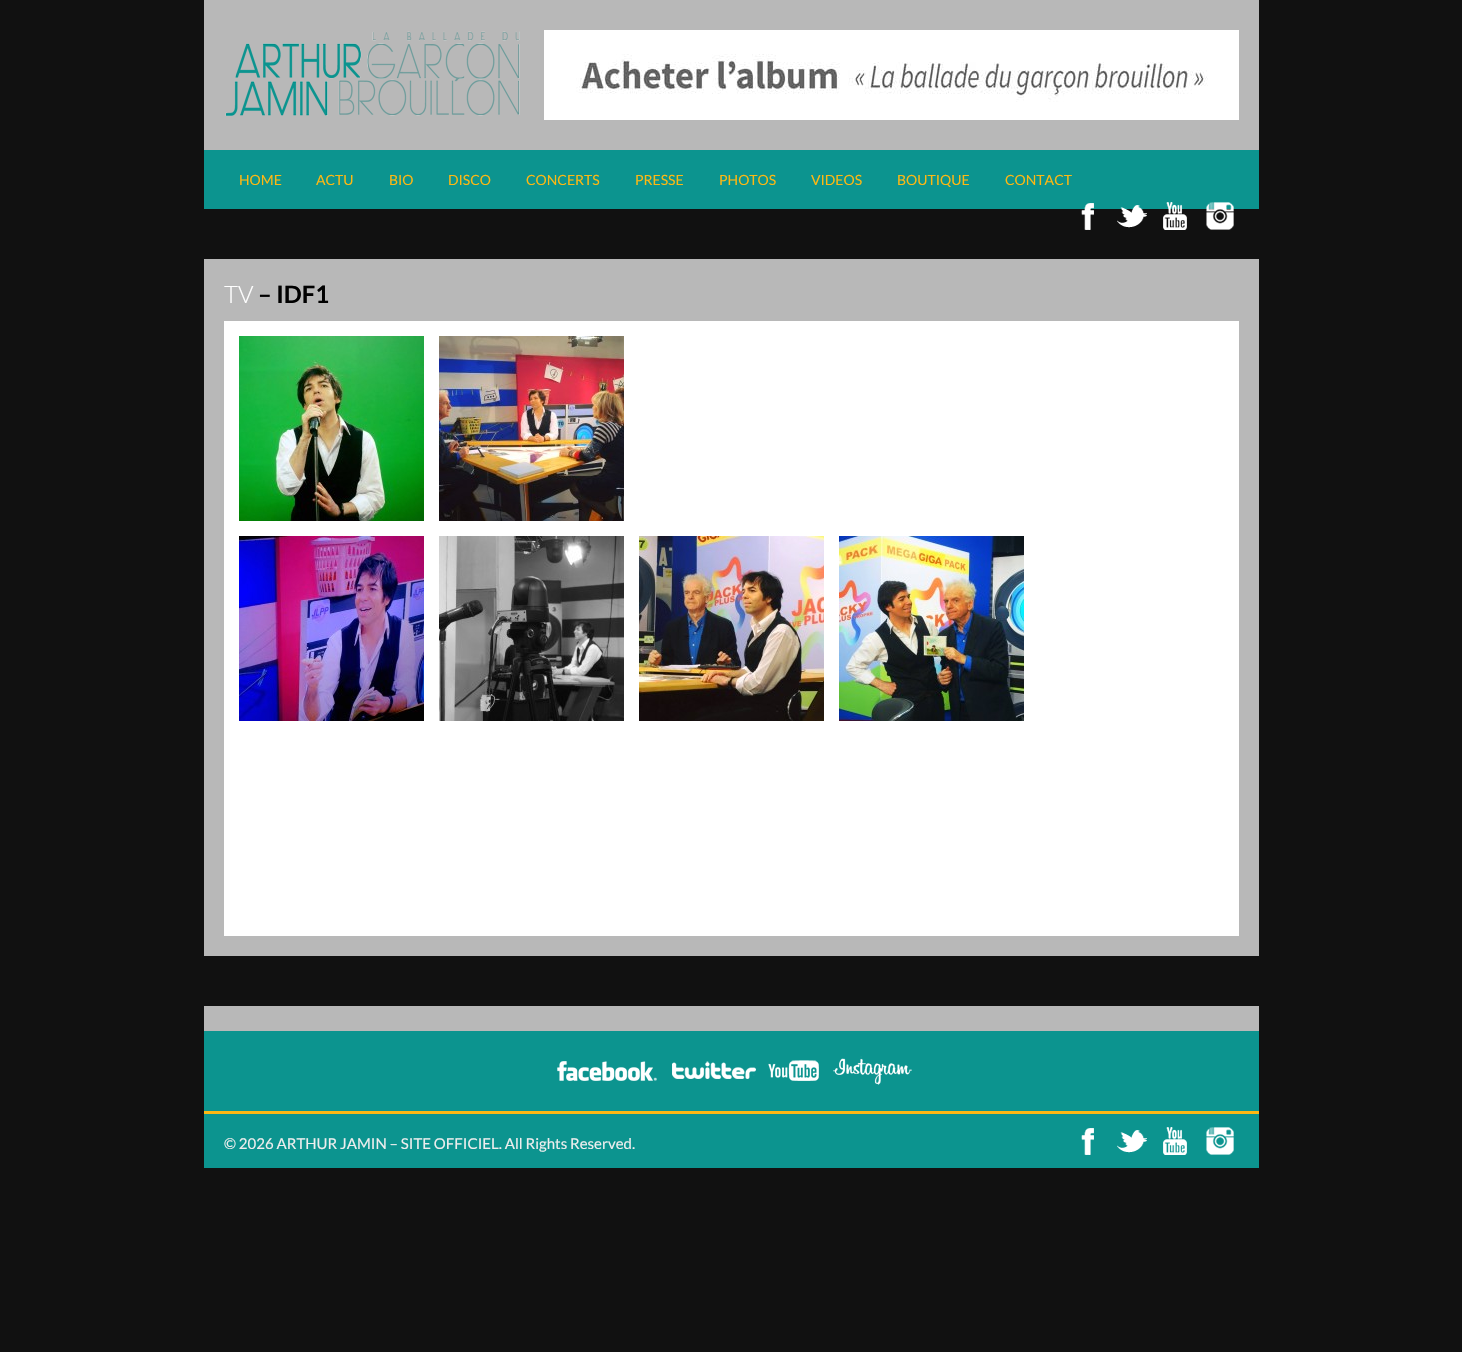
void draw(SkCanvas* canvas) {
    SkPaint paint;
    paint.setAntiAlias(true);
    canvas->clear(0xFF111111);
    paint.setColor(0xFFB8B8B8);
    canvas->drawRect(SkRect::MakeXYWH(204, 0, 1055, 150), paint);
    canvas->drawImageRect(SkImages::DeferredFromEncodedData(SkData::MakeFromFileName("img1.png")), SkRect::MakeXYWH(225, 31, 295, 85), SkSamplingOptions());
    canvas->drawImageRect(SkImages::DeferredFromEncodedData(SkData::MakeFromFileName("img2.png")), SkRect::MakeXYWH(544, 30, 695, 90), SkSamplingOptions());
    paint.setColor(0xFF0C948F);
    canvas->drawRect(SkRect::MakeXYWH(204, 150, 1055, 59), paint);
    SkFont font1(fontMgr->matchFamilyStyle("Lato", SkFontStyle::Normal()), 14);
    font1.setSubpixel(true);
    paint.setColor(0xFFFDB813);
    canvas->drawString("HOME", 239, 185, font1, paint);
    canvas->drawString("ACTU", 316, 185, font1, paint);
    canvas->drawString("BIO", 389, 185, font1, paint);
    canvas->drawString("DISCO", 448, 185, font1, paint);
    canvas->drawString("CONCERTS", 526, 185, font1, paint);
    canvas->drawString("PRESSE", 635, 185, font1, paint);
    canvas->drawString("PHOTOS", 719, 185, font1, paint);
    canvas->drawString("VIDEOS", 811, 185, font1, paint);
    canvas->drawString("BOUTIQUE", 897, 185, font1, paint);
    canvas->drawString("CONTACT", 1005, 185, font1, paint);
    canvas->drawImageRect(SkImages::DeferredFromEncodedData(SkData::MakeFromFileName("img3.png")), SkRect::MakeXYWH(1081, 203, 13, 27), SkSamplingOptions());
    canvas->drawImageRect(SkImages::DeferredFromEncodedData(SkData::MakeFromFileName("img4.png")), SkRect::MakeXYWH(1117, 205, 30, 23), SkSamplingOptions());
    canvas->drawImageRect(SkImages::DeferredFromEncodedData(SkData::MakeFromFileName("img5.png")), SkRect::MakeXYWH(1163, 202, 24, 28), SkSamplingOptions());
    canvas->drawImageRect(SkImages::DeferredFromEncodedData(SkData::MakeFromFileName("img6.png")), SkRect::MakeXYWH(1206, 202, 28, 28), SkSamplingOptions());
    paint.setColor(0xFFB8B8B8);
    canvas->drawRect(SkRect::MakeXYWH(204, 259, 1055, 697), paint);
    SkFont font2(fontMgr->matchFamilyStyle("Lato", SkFontStyle(300, SkFontStyle::kNormal_Width, SkFontStyle::kUpright_Slant)), 24);
    font2.setSubpixel(true);
    paint.setColor(0xFFFFFFFF);
    canvas->drawString("TV", 224, 303, font2, paint);
    SkFont font3(fontMgr->matchFamilyStyle("Lato", SkFontStyle::Bold()), 24);
    font3.setSubpixel(true);
    paint.setColor(0xFF000000);
    canvas->drawString("– IDF1", 258, 303, font3, paint);
    paint.setColor(0xFFFFFFFF);
    canvas->drawRect(SkRect::MakeXYWH(224, 321, 1015, 615), paint);
    canvas->drawImageRect(SkImages::DeferredFromEncodedData(SkData::MakeFromFileName("img7.png")), SkRect::MakeXYWH(239, 336, 185, 185), SkSamplingOptions());
    canvas->drawImageRect(SkImages::DeferredFromEncodedData(SkData::MakeFromFileName("img8.png")), SkRect::MakeXYWH(439, 336, 185, 185), SkSamplingOptions());
    canvas->drawImageRect(SkImages::DeferredFromEncodedData(SkData::MakeFromFileName("img9.png")), SkRect::MakeXYWH(239, 536, 185, 185), SkSamplingOptions());
    canvas->drawImageRect(SkImages::DeferredFromEncodedData(SkData::MakeFromFileName("img10.png")), SkRect::MakeXYWH(439, 536, 185, 185), SkSamplingOptions());
    canvas->drawImageRect(SkImages::DeferredFromEncodedData(SkData::MakeFromFileName("img11.png")), SkRect::MakeXYWH(639, 536, 185, 185), SkSamplingOptions());
    canvas->drawImageRect(SkImages::DeferredFromEncodedData(SkData::MakeFromFileName("img12.png")), SkRect::MakeXYWH(839, 536, 185, 185), SkSamplingOptions());
    paint.setColor(0xFFB8B8B8);
    canvas->drawRect(SkRect::MakeXYWH(204, 1006, 1055, 25), paint);
    paint.setColor(0xFF0C948F);
    canvas->drawRect(SkRect::MakeXYWH(204, 1031, 1055, 80), paint);
    canvas->drawImageRect(SkImages::DeferredFromEncodedData(SkData::MakeFromFileName("img13.png")), SkRect::MakeXYWH(557, 1061, 100, 20), SkSamplingOptions());
    canvas->drawImageRect(SkImages::DeferredFromEncodedData(SkData::MakeFromFileName("img14.png")), SkRect::MakeXYWH(672, 1061, 84, 18), SkSamplingOptions());
    canvas->drawImageRect(SkImages::DeferredFromEncodedData(SkData::MakeFromFileName("img15.png")), SkRect::MakeXYWH(768, 1060, 51, 21), SkSamplingOptions());
    canvas->drawImageRect(SkImages::DeferredFromEncodedData(SkData::MakeFromFileName("img16.png")), SkRect::MakeXYWH(833, 1056, 79, 29), SkSamplingOptions());
    canvas->drawRect(SkRect::MakeXYWH(204, 1114, 1055, 54), paint);
    paint.setColor(0xFFFDB813);
    canvas->drawRect(SkRect::MakeXYWH(204, 1111, 1055, 3), paint);
    SkFont font4(fontMgr->matchFamilyStyle("Lato", SkFontStyle::Normal()), 15);
    font4.setSubpixel(true);
    paint.setColor(0xFFEEEEEE);
    canvas->drawString("© 2026 ARTHUR JAMIN – SITE OFFICIEL. All Rights Reserved.", 224, 1149, font4, paint);
    canvas->drawImageRect(SkImages::DeferredFromEncodedData(SkData::MakeFromFileName("img17.png")), SkRect::MakeXYWH(1081, 1128, 13, 27), SkSamplingOptions());
    canvas->drawImageRect(SkImages::DeferredFromEncodedData(SkData::MakeFromFileName("img18.png")), SkRect::MakeXYWH(1117, 1130, 30, 23), SkSamplingOptions());
    canvas->drawImageRect(SkImages::DeferredFromEncodedData(SkData::MakeFromFileName("img19.png")), SkRect::MakeXYWH(1163, 1127, 24, 28), SkSamplingOptions());
    canvas->drawImageRect(SkImages::DeferredFromEncodedData(SkData::MakeFromFileName("img20.png")), SkRect::MakeXYWH(1206, 1127, 28, 28), SkSamplingOptions());
}
